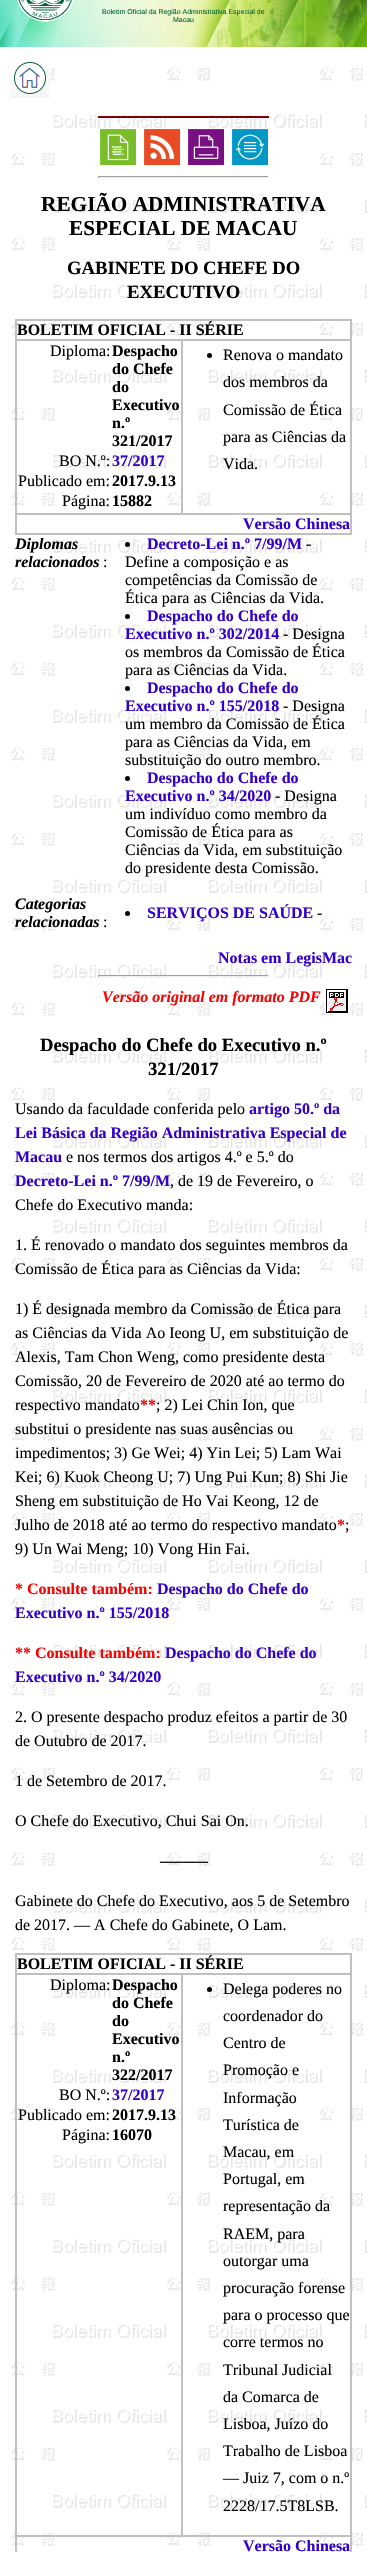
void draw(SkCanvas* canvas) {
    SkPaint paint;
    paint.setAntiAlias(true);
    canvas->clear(0xFFFFFFFF);
    canvas->drawImageRect(SkImages::DeferredFromEncodedData(SkData::MakeFromFileName("img1.png")), SkRect::MakeXYWH(11, 47, 356, 2499), SkSamplingOptions());
    canvas->drawImageRect(SkImages::DeferredFromEncodedData(SkData::MakeFromFileName("img2.png")), SkRect::MakeXYWH(0, 0, 367, 47), SkSamplingOptions());
    canvas->drawImageRect(SkImages::DeferredFromEncodedData(SkData::MakeFromFileName("img3.png")), SkRect::MakeXYWH(17, 0, 57, 22), SkSamplingOptions());
    SkFont font1(fontMgr->matchFamilyStyle("Liberation Sans", SkFontStyle::Normal()), 7);
    font1.setSubpixel(true);
    paint.setColor(0xFF00633D);
    canvas->drawString("Boletim Oficial da Região Administrativa Especial de", 102, 14, font1, paint);
    canvas->drawString("Macau", 173, 22, font1, paint);
    canvas->drawImageRect(SkImages::DeferredFromEncodedData(SkData::MakeFromFileName("img4.png")), SkRect::MakeXYWH(10, 62, 40, 36), SkSamplingOptions());
    paint.setColor(0xFF800000);
    canvas->drawRect(SkRect::MakeXYWH(98, 116, 171, 2), paint);
    canvas->drawImageRect(SkImages::DeferredFromEncodedData(SkData::MakeFromFileName("img5.png")), SkRect::MakeXYWH(100, 129, 36, 36), SkSamplingOptions());
    canvas->drawImageRect(SkImages::DeferredFromEncodedData(SkData::MakeFromFileName("img6.png")), SkRect::MakeXYWH(144, 129, 36, 36), SkSamplingOptions());
    canvas->drawImageRect(SkImages::DeferredFromEncodedData(SkData::MakeFromFileName("img7.png")), SkRect::MakeXYWH(188, 129, 36, 36), SkSamplingOptions());
    canvas->drawImageRect(SkImages::DeferredFromEncodedData(SkData::MakeFromFileName("img8.png")), SkRect::MakeXYWH(232, 129, 36, 36), SkSamplingOptions());
    paint.setColor(0xFF9F9F9F);
    canvas->drawRect(SkRect::MakeXYWH(98, 176, 171, 1), paint);
    paint.setColor(0xFFEEEEEE);
    canvas->drawRect(SkRect::MakeXYWH(268, 176, 1, 2), paint);
    canvas->drawRect(SkRect::MakeXYWH(98, 177, 171, 1), paint);
    paint.setColor(0xFF9F9F9F);
    canvas->drawRect(SkRect::MakeXYWH(98, 176, 1, 2), paint);
    SkFont font2(fontMgr->matchFamilyStyle("Liberation Serif", SkFontStyle::Bold()), 21.3f);
    font2.setSubpixel(true);
    paint.setColor(0xFF000000);
    canvas->drawString("REGIÃO ADMINISTRATIVA", 41, 211, font2, paint);
    canvas->drawString("ESPECIAL DE MACAU", 69, 235, font2, paint);
    SkFont font3(fontMgr->matchFamilyStyle("Liberation Serif", SkFontStyle::Bold()), 18.7f);
    font3.setSubpixel(true);
    canvas->drawString("GABINETE DO CHEFE DO", 67, 274, font3, paint);
    canvas->drawString("EXECUTIVO", 127, 298, font3, paint);
    paint.setStyle(SkPaint::kStroke_Style);
    paint.setStrokeWidth(1);
    paint.setColor(0xFFC0C0C0);
    canvas->drawRect(SkRect::MakeXYWH(15.5f, 319.5f, 336, 215), paint);
    canvas->drawRect(SkRect::MakeXYWH(16.5f, 320.5f, 334, 19), paint);
    SkFont font4(fontMgr->matchFamilyStyle("Liberation Serif", SkFontStyle::Bold()), 16);
    font4.setSubpixel(true);
    paint.setStyle(SkPaint::kFill_Style);
    paint.setColor(0xFF000000);
    canvas->drawString("BOLETIM OFICIAL - II SÉRIE", 17, 335, font4, paint);
    paint.setStyle(SkPaint::kStroke_Style);
    paint.setColor(0xFFC0C0C0);
    canvas->drawRect(SkRect::MakeXYWH(16.5f, 340.5f, 165, 173), paint);
    SkFont font5(fontMgr->matchFamilyStyle("Liberation Serif", SkFontStyle::Normal()), 16);
    font5.setSubpixel(true);
    paint.setStyle(SkPaint::kFill_Style);
    paint.setColor(0xFF000000);
    canvas->drawString("Diploma:", 50, 356, font5, paint);
    canvas->drawString("Despacho", 112, 356, font4, paint);
    canvas->drawString("do Chefe", 112, 374, font4, paint);
    canvas->drawString("do", 112, 392, font4, paint);
    canvas->drawString("Executivo", 112, 410, font4, paint);
    canvas->drawString("n.º", 112, 428, font4, paint);
    canvas->drawString("321/2017", 112, 446, font4, paint);
    canvas->drawString("BO N.º:", 59, 466, font5, paint);
    paint.setColor(0xFF3300CC);
    canvas->drawString("37/2017", 112, 466, font4, paint);
    paint.setColor(0xFF000000);
    canvas->drawString("Publicado em:", 18, 486, font5, paint);
    canvas->drawString("2017.9.13", 112, 486, font4, paint);
    canvas->drawString("Página:", 62, 506, font5, paint);
    canvas->drawString("15882", 112, 506, font4, paint);
    paint.setStyle(SkPaint::kStroke_Style);
    paint.setColor(0xFFC0C0C0);
    canvas->drawRect(SkRect::MakeXYWH(182.5f, 340.5f, 168, 173), paint);
    paint.setStyle(SkPaint::kFill_Style);
    paint.setColor(0xFF000000);
    canvas->drawCircle(209.5f, 355.5f, 2.5f, paint);
    canvas->drawString("Renova o mandato", 223, 360, font5, paint);
    canvas->drawString("dos membros da", 223, 387, font5, paint);
    canvas->drawString("Comissão de Ética", 223, 415, font5, paint);
    canvas->drawString("para as Ciências da", 223, 442, font5, paint);
    canvas->drawString("Vida.", 223, 469, font5, paint);
    paint.setStyle(SkPaint::kStroke_Style);
    paint.setColor(0xFFC0C0C0);
    canvas->drawRect(SkRect::MakeXYWH(16.5f, 514.5f, 334, 19), paint);
    paint.setStyle(SkPaint::kFill_Style);
    paint.setColor(0xFF3300CC);
    canvas->drawString("Versão Chinesa", 243, 529, font4, paint);
    SkFont font6(fontMgr->matchFamilyStyle("Liberation Serif", SkFontStyle::BoldItalic()), 16);
    font6.setSubpixel(true);
    paint.setColor(0xFF000000);
    canvas->drawString("Diplomas", 15, 549, font6, paint);
    canvas->drawString("relacionados", 15, 567, font6, paint);
    canvas->drawString(":", 103, 567, font5, paint);
    canvas->drawCircle(127.5f, 544.5f, 2.5f, paint);
    paint.setColor(0xFF3300CC);
    canvas->drawString("Decreto-Lei n.º 7/99/M", 147, 549, font4, paint);
    paint.setColor(0xFF000000);
    canvas->drawString("-", 306, 549, font5, paint);
    canvas->drawString("Define a composição e as", 125, 567, font5, paint);
    canvas->drawString("competências da Comissão de", 125, 585, font5, paint);
    canvas->drawString("Ética para as Ciências da Vida.", 125, 603, font5, paint);
    canvas->drawCircle(127.5f, 616.5f, 2.5f, paint);
    paint.setColor(0xFF3300CC);
    canvas->drawString("Despacho do Chefe do", 147, 621, font4, paint);
    canvas->drawString("Executivo n.º 302/2014", 125, 639, font4, paint);
    paint.setColor(0xFF000000);
    canvas->drawString("- Designa", 283, 639, font5, paint);
    canvas->drawString("os membros da Comissão de Ética", 125, 657, font5, paint);
    canvas->drawString("para as Ciências da Vida.", 125, 675, font5, paint);
    canvas->drawCircle(127.5f, 688.5f, 2.5f, paint);
    paint.setColor(0xFF3300CC);
    canvas->drawString("Despacho do Chefe do", 147, 693, font4, paint);
    canvas->drawString("Executivo n.º 155/2018", 125, 711, font4, paint);
    paint.setColor(0xFF000000);
    canvas->drawString("- Designa", 283, 711, font5, paint);
    canvas->drawString("um membro da Comissão de Ética", 125, 729, font5, paint);
    canvas->drawString("para as Ciências da Vida, em", 125, 747, font5, paint);
    canvas->drawString("substituição do outro membro.", 125, 765, font5, paint);
    canvas->drawCircle(127.5f, 778.5f, 2.5f, paint);
    paint.setColor(0xFF3300CC);
    canvas->drawString("Despacho do Chefe do", 147, 783, font4, paint);
    canvas->drawString("Executivo n.º 34/2020", 125, 801, font4, paint);
    paint.setColor(0xFF000000);
    canvas->drawString("- Designa", 275, 801, font5, paint);
    canvas->drawString("um indivíduo como membro da", 125, 819, font5, paint);
    canvas->drawString("Comissão de Ética para as", 125, 837, font5, paint);
    canvas->drawString("Ciências da Vida, em substituição", 125, 855, font5, paint);
    canvas->drawString("do presidente desta Comissão.", 125, 873, font5, paint);
    canvas->drawString("Categorias", 15, 909, font6, paint);
    canvas->drawString("relacionadas", 15, 927, font6, paint);
    canvas->drawString(":", 103, 927, font5, paint);
    canvas->drawCircle(127.5f, 913.5f, 2.5f, paint);
    paint.setColor(0xFF3300CC);
    canvas->drawString("SERVIÇOS DE SAÚDE", 147, 918, font4, paint);
    paint.setColor(0xFF000000);
    canvas->drawString("-", 317, 918, font5, paint);
    paint.setColor(0xFF3300CC);
    canvas->drawString("Notas em LegisMac", 218, 963, font4, paint);
    paint.setColor(0xFF9F9F9F);
    canvas->drawRect(SkRect::MakeXYWH(98, 975, 171, 1), paint);
    paint.setColor(0xFFEEEEEE);
    canvas->drawRect(SkRect::MakeXYWH(268, 975, 1, 2), paint);
    canvas->drawRect(SkRect::MakeXYWH(98, 976, 171, 1), paint);
    paint.setColor(0xFF9F9F9F);
    canvas->drawRect(SkRect::MakeXYWH(98, 975, 1, 2), paint);
    paint.setColor(0xFFFF0000);
    canvas->drawString("Versão original em formato PDF", 102, 1002, font6, paint);
    canvas->drawImageRect(SkImages::DeferredFromEncodedData(SkData::MakeFromFileName("img9.png")), SkRect::MakeXYWH(325, 989, 23, 25), SkSamplingOptions());
    paint.setColor(0xFF000000);
    canvas->drawString("Despacho do Chefe do Executivo n.º", 40, 1051, font3, paint);
    canvas->drawString("321/2017", 148, 1075, font3, paint);
    canvas->drawString("Usando da faculdade conferida pelo", 15, 1114, font5, paint);
    paint.setColor(0xFF3300CC);
    canvas->drawString("artigo 50.º da", 249, 1114, font4, paint);
    canvas->drawString("Lei Básica da Região Administrativa Especial de", 15, 1138, font4, paint);
    canvas->drawString("Macau", 15, 1162, font4, paint);
    paint.setColor(0xFF000000);
    canvas->drawString("e nos termos dos artigos 4.º e 5.º do", 66, 1162, font5, paint);
    paint.setColor(0xFF3300CC);
    canvas->drawString("Decreto-Lei n.º 7/99/M", 15, 1186, font4, paint);
    paint.setColor(0xFF000000);
    canvas->drawString(", de 19 de Fevereiro, o", 170, 1186, font5, paint);
    canvas->drawString("Chefe do Executivo manda:", 15, 1210, font5, paint);
    canvas->drawString("1. É renovado o mandato dos seguintes membros da", 15, 1250, font5, paint);
    canvas->drawString("Comissão de Ética para as Ciências da Vida:", 15, 1274, font5, paint);
    canvas->drawString("1) É designada membro da Comissão de Ética para", 15, 1314, font5, paint);
    canvas->drawString("as Ciências da Vida Ao Ieong U, em substituição de", 15, 1338, font5, paint);
    canvas->drawString("Alexis, Tam Chon Weng, como presidente desta", 15, 1362, font5, paint);
    canvas->drawString("Comissão, 20 de Fevereiro de 2020 até ao termo do", 15, 1386, font5, paint);
    canvas->drawString("respectivo mandato", 15, 1410, font5, paint);
    paint.setColor(0xFFFF0000);
    canvas->drawString("**", 140, 1410, font4, paint);
    paint.setColor(0xFF000000);
    canvas->drawString("; 2) Lei Chin Ion, que", 156, 1410, font5, paint);
    canvas->drawString("substitui o presidente nas suas ausências ou", 15, 1434, font5, paint);
    canvas->drawString("impedimentos; 3) Ge Wei; 4) Yin Lei; 5) Lam Wai", 15, 1458, font5, paint);
    canvas->drawString("Kei; 6) Kuok Cheong U; 7) Ung Pui Kun; 8) Shi Jie", 15, 1482, font5, paint);
    canvas->drawString("Sheng em substituição de Ho Vai Keong, 12 de", 15, 1506, font5, paint);
    canvas->drawString("Julho de 2018 até ao termo do respectivo mandato", 15, 1530, font5, paint);
    paint.setColor(0xFFFF0000);
    canvas->drawString("*", 337, 1530, font4, paint);
    paint.setColor(0xFF000000);
    canvas->drawString(";", 345, 1530, font5, paint);
    canvas->drawString("9) Un Wai Meng; 10) Vong Hin Fai.", 15, 1554, font5, paint);
    paint.setColor(0xFFFF0000);
    canvas->drawString("* Consulte também:", 15, 1594, font4, paint);
    paint.setColor(0xFF3300CC);
    canvas->drawString("Despacho do Chefe do", 157, 1594, font4, paint);
    canvas->drawString("Executivo n.º 155/2018", 15, 1618, font4, paint);
    paint.setColor(0xFFFF0000);
    canvas->drawString("** Consulte também:", 15, 1658, font4, paint);
    paint.setColor(0xFF3300CC);
    canvas->drawString("Despacho do Chefe do", 165, 1658, font4, paint);
    canvas->drawString("Executivo n.º 34/2020", 15, 1682, font4, paint);
    paint.setColor(0xFF000000);
    canvas->drawString("2. O presente despacho produz efeitos a partir de 30", 15, 1722, font5, paint);
    canvas->drawString("de Outubro de 2017.", 15, 1746, font5, paint);
    canvas->drawString("1 de Setembro de 2017.", 15, 1786, font5, paint);
    canvas->drawString("O Chefe do Executivo, Chui Sai On.", 15, 1826, font5, paint);
    canvas->drawString("———", 160, 1866, font4, paint);
    canvas->drawString("Gabinete do Chefe do Executivo, aos 5 de Setembro", 15, 1906, font5, paint);
    canvas->drawString("de 2017. — A Chefe do Gabinete, O Lam.", 15, 1930, font5, paint);
    paint.setStyle(SkPaint::kStroke_Style);
    paint.setColor(0xFFC0C0C0);
    canvas->drawRect(SkRect::MakeXYWH(15.5f, 1953.5f, 336, 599), paint);
    canvas->drawRect(SkRect::MakeXYWH(16.5f, 1954.5f, 334, 19), paint);
    paint.setStyle(SkPaint::kFill_Style);
    paint.setColor(0xFF000000);
    canvas->drawString("BOLETIM OFICIAL - II SÉRIE", 17, 1969, font4, paint);
    paint.setStyle(SkPaint::kStroke_Style);
    paint.setColor(0xFFC0C0C0);
    canvas->drawRect(SkRect::MakeXYWH(16.5f, 1974.5f, 165, 561), paint);
    paint.setStyle(SkPaint::kFill_Style);
    paint.setColor(0xFF000000);
    canvas->drawString("Diploma:", 50, 1990, font5, paint);
    canvas->drawString("Despacho", 112, 1990, font4, paint);
    canvas->drawString("do Chefe", 112, 2008, font4, paint);
    canvas->drawString("do", 112, 2026, font4, paint);
    canvas->drawString("Executivo", 112, 2044, font4, paint);
    canvas->drawString("n.º", 112, 2062, font4, paint);
    canvas->drawString("322/2017", 112, 2080, font4, paint);
    canvas->drawString("BO N.º:", 59, 2100, font5, paint);
    paint.setColor(0xFF3300CC);
    canvas->drawString("37/2017", 112, 2100, font4, paint);
    paint.setColor(0xFF000000);
    canvas->drawString("Publicado em:", 18, 2120, font5, paint);
    canvas->drawString("2017.9.13", 112, 2120, font4, paint);
    canvas->drawString("Página:", 62, 2140, font5, paint);
    canvas->drawString("16070", 112, 2140, font4, paint);
    paint.setStyle(SkPaint::kStroke_Style);
    paint.setColor(0xFFC0C0C0);
    canvas->drawRect(SkRect::MakeXYWH(182.5f, 1974.5f, 168, 561), paint);
    paint.setStyle(SkPaint::kFill_Style);
    paint.setColor(0xFF000000);
    canvas->drawCircle(209.5f, 1989.5f, 2.5f, paint);
    canvas->drawString("Delega poderes no", 223, 1994, font5, paint);
    canvas->drawString("coordenador do", 223, 2021, font5, paint);
    canvas->drawString("Centro de", 223, 2048, font5, paint);
    canvas->drawString("Promoção e", 223, 2075, font5, paint);
    canvas->drawString("Informação", 223, 2103, font5, paint);
    canvas->drawString("Turística de", 223, 2130, font5, paint);
    canvas->drawString("Macau, em", 223, 2157, font5, paint);
    canvas->drawString("Portugal, em", 223, 2184, font5, paint);
    canvas->drawString("representação da", 223, 2211, font5, paint);
    canvas->drawString("RAEM, para", 223, 2239, font5, paint);
    canvas->drawString("outorgar uma", 223, 2266, font5, paint);
    canvas->drawString("procuração forense", 223, 2293, font5, paint);
    canvas->drawString("para o processo que", 223, 2320, font5, paint);
    canvas->drawString("corre termos no", 223, 2347, font5, paint);
    canvas->drawString("Tribunal Judicial", 223, 2375, font5, paint);
    canvas->drawString("da Comarca de", 223, 2402, font5, paint);
    canvas->drawString("Lisboa, Juízo do", 223, 2429, font5, paint);
    canvas->drawString("Trabalho de Lisboa", 223, 2456, font5, paint);
    canvas->drawString("— Juiz 7, com o n.º", 223, 2483, font5, paint);
    canvas->drawString("2228/17.5T8LSB.", 223, 2511, font5, paint);
    paint.setStyle(SkPaint::kStroke_Style);
    paint.setColor(0xFFC0C0C0);
    canvas->drawRect(SkRect::MakeXYWH(16.5f, 2536.5f, 334, 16), paint);
    paint.setStyle(SkPaint::kFill_Style);
    paint.setColor(0xFF3300CC);
    canvas->drawString("Versão Chinesa", 243, 2551, font4, paint);
}
